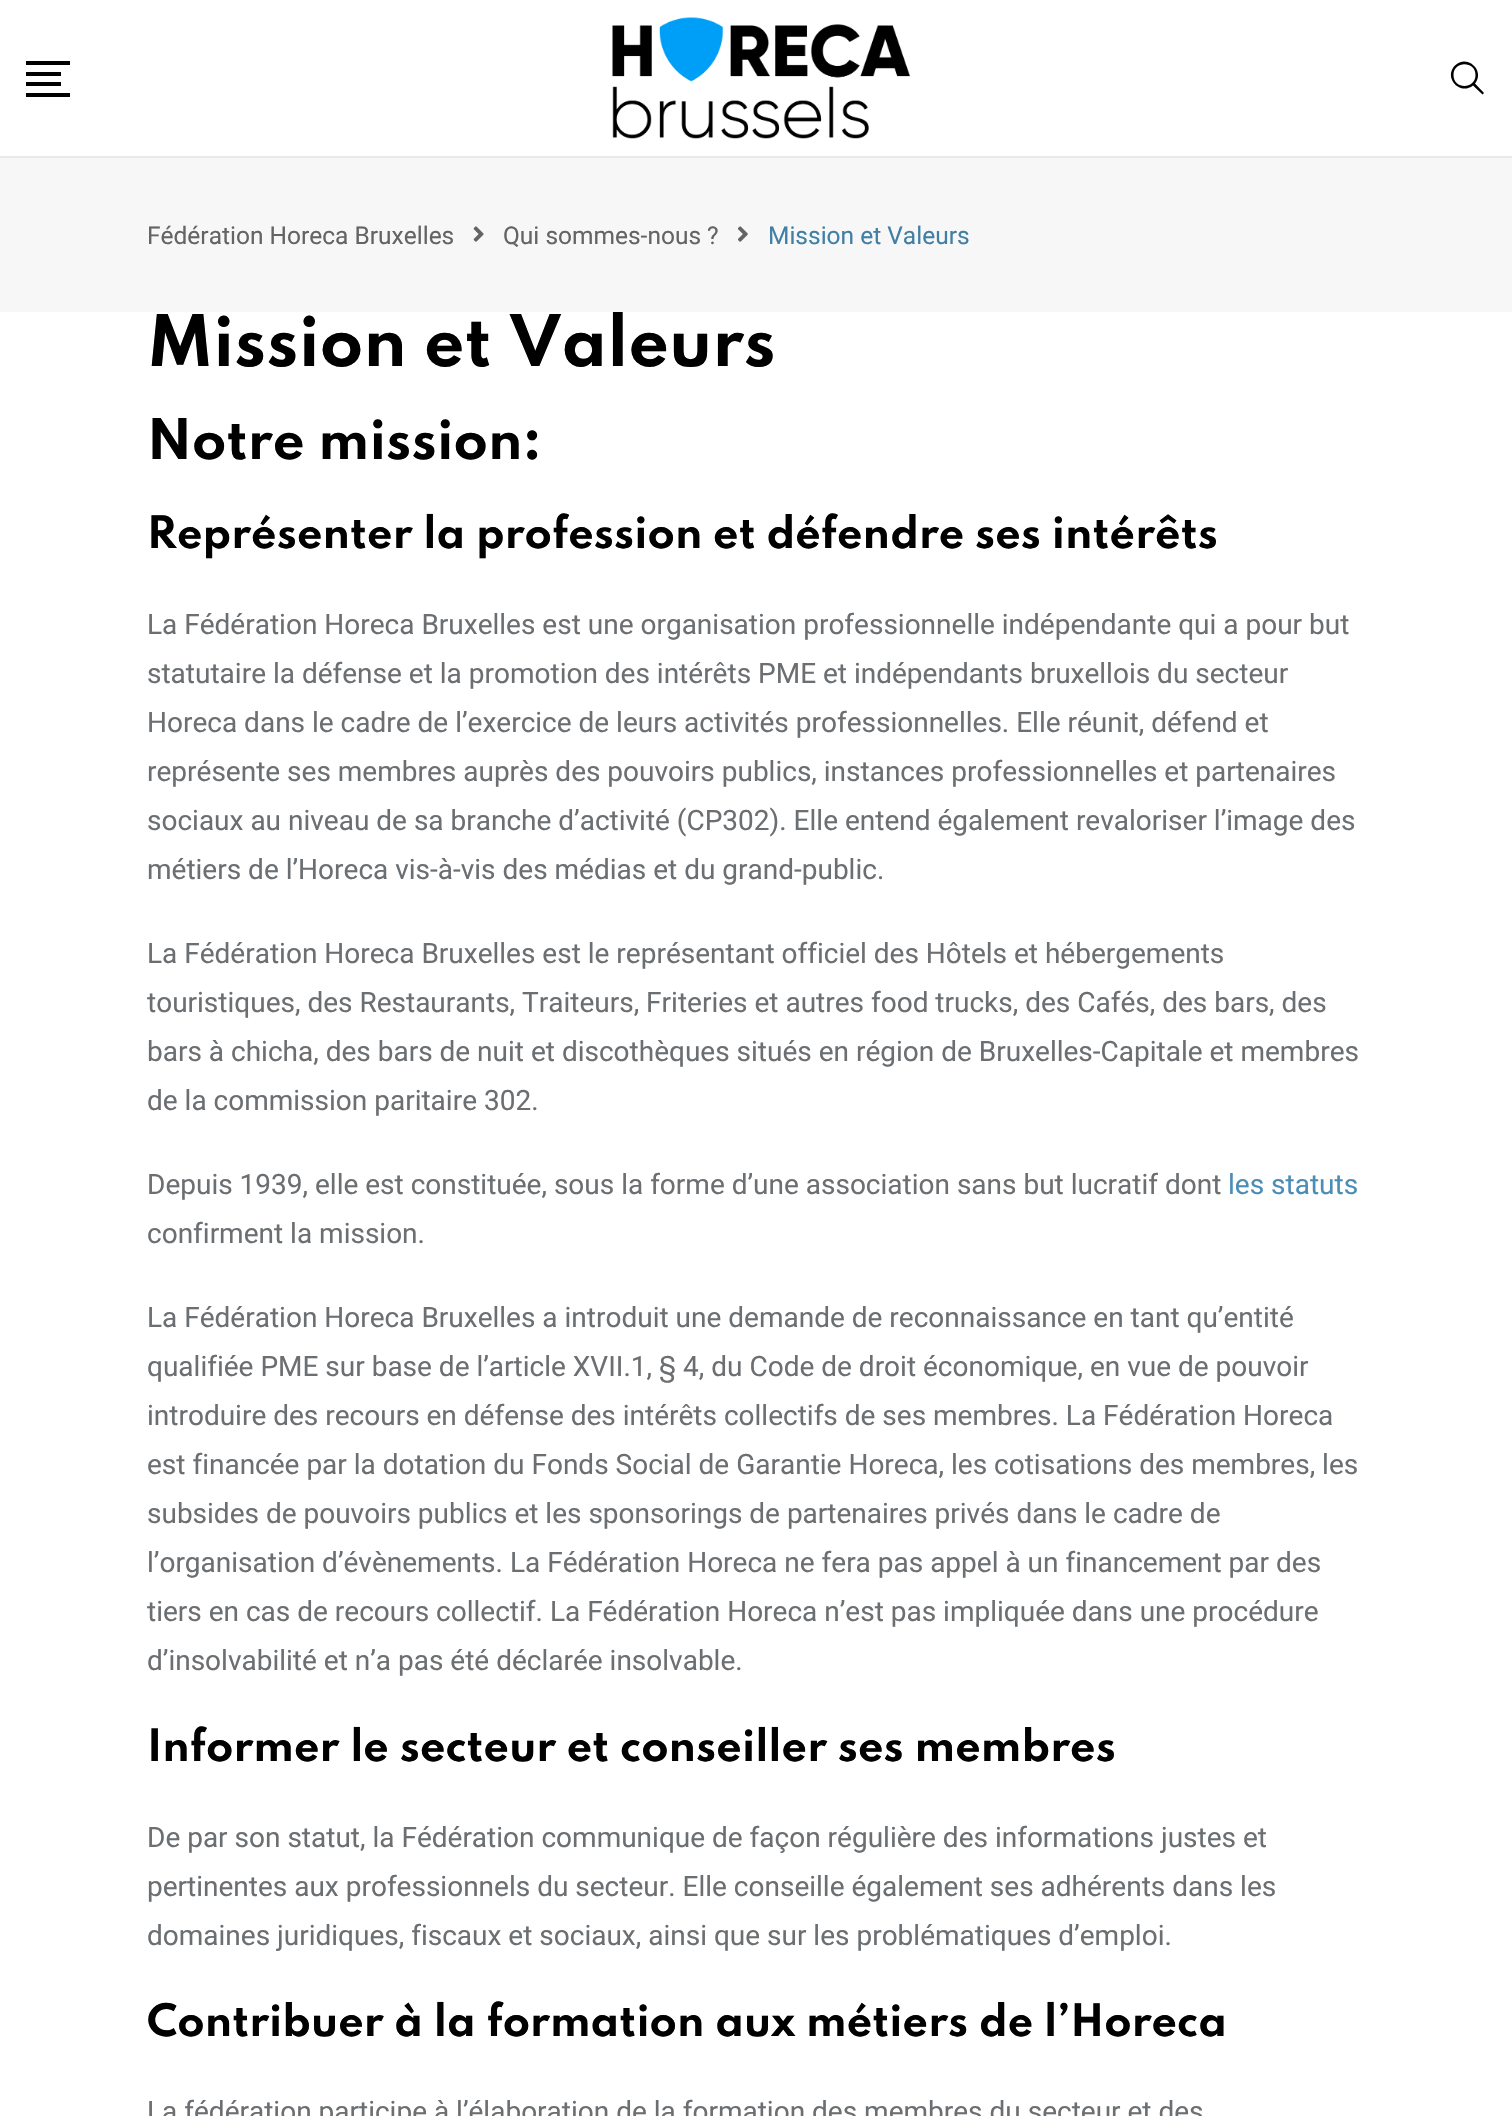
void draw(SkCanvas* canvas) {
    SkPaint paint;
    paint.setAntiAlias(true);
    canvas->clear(0xFFFFFFFF);
    paint.setColor(0xFFE9E9E9);
    canvas->drawRect(SkRect::MakeXYWH(0, 156, 1512, 2), paint);
    paint.setColor(0xFF000000);
    canvas->drawRect(SkRect::MakeXYWH(26, 61, 44, 4), paint);
    canvas->drawRect(SkRect::MakeXYWH(26, 72, 35, 4), paint);
    canvas->drawRect(SkRect::MakeXYWH(26, 82, 35, 4), paint);
    canvas->drawRect(SkRect::MakeXYWH(26, 93, 44, 4), paint);
    canvas->drawImageRect(SkImages::DeferredFromEncodedData(SkData::MakeFromFileName("img1.png")), SkRect::MakeXYWH(612, 17, 298, 122), SkSamplingOptions());
    canvas->drawPath(SkPathBuilder().moveTo(1484, 93).lineTo(1475, 83.5f).cubicTo(1485.5f, 70.5f, 1467, 53.5f, 1455, 65.5f).cubicTo(1443, 77.5f, 1460, 96, 1473, 85.5f).lineTo(1482.5f, 94.5f).close().moveTo(1453.5f, 75).cubicTo(1453.5f, 60.5f, 1476, 61, 1475.5f, 75.5f).cubicTo(1475, 89.5f, 1453.5f, 89.5f, 1453.5f, 75).close().detach(), paint);
    SkFont font1(fontMgr->matchFamilyStyle("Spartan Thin", SkFontStyle::Bold()), 63);
    font1.setSubpixel(true);
    canvas->drawString("Mission et Valeurs", 147, 366, font1, paint);
    paint.setColor(0xFFF7F7F7);
    canvas->drawRect(SkRect::MakeXYWH(0, 158, 1512, 154), paint);
    SkFont font2(fontMgr->matchFamilyStyle("Roboto", SkFontStyle::Normal()), 24.5f);
    font2.setSubpixel(true);
    paint.setColor(0xFF646464);
    canvas->drawString("Fédération Horeca Bruxelles", 147, 244, font2, paint);
    canvas->drawImageRect(SkImages::DeferredFromEncodedData(SkData::MakeFromFileName("img2.png")), SkRect::MakeXYWH(473, 226, 11, 16), SkSamplingOptions());
    canvas->drawString("Qui sommes-nous ?", 503, 244, font2, paint);
    canvas->drawImageRect(SkImages::DeferredFromEncodedData(SkData::MakeFromFileName("img3.png")), SkRect::MakeXYWH(738, 226, 10, 16), SkSamplingOptions());
    paint.setColor(0xFF427FA5);
    canvas->drawString("Mission et Valeurs", 768, 244, font2, paint);
    SkFont font3(fontMgr->matchFamilyStyle("Spartan Thin", SkFontStyle::Bold()), 49.75f);
    font3.setSubpixel(true);
    paint.setColor(0xFF000000);
    canvas->drawString("Notre mission:", 147, 459, font3, paint);
    SkFont font4(fontMgr->matchFamilyStyle("Spartan Thin", SkFontStyle::Bold()), 39.6f);
    font4.setSubpixel(true);
    canvas->drawString("Représenter la profession et défendre ses intérêts", 147, 548, font4, paint);
    SkFont font5(fontMgr->matchFamilyStyle("Roboto", SkFontStyle::Normal()), 28);
    font5.setSubpixel(true);
    paint.setColor(0xFF6C6F72);
    canvas->drawString("La Fédération Horeca Bruxelles est une organisation professionnelle indépendante qui a pour but", 147, 634, font5, paint);
    canvas->drawString("statutaire la défense et la promotion des intérêts PME et indépendants bruxellois du secteur", 147, 683, font5, paint);
    canvas->drawString("Horeca dans le cadre de l’exercice de leurs activités professionnelles. Elle réunit, défend et", 147, 732, font5, paint);
    canvas->drawString("représente ses membres auprès des pouvoirs publics, instances professionnelles et partenaires", 147, 781, font5, paint);
    canvas->drawString("sociaux au niveau de sa branche d’activité (CP302). Elle entend également revaloriser l’image des", 147, 830, font5, paint);
    canvas->drawString("métiers de l’Horeca vis-à-vis des médias et du grand-public.", 147, 879, font5, paint);
    canvas->drawString("La Fédération Horeca Bruxelles est le représentant officiel des Hôtels et hébergements", 147, 963, font5, paint);
    canvas->drawString("touristiques, des Restaurants, Traiteurs, Friteries et autres food trucks, des Cafés, des bars, des", 147, 1012, font5, paint);
    canvas->drawString("bars à chicha, des bars de nuit et discothèques situés en région de Bruxelles-Capitale et membres", 147, 1061, font5, paint);
    canvas->drawString("de la commission paritaire 302.", 147, 1110, font5, paint);
    canvas->drawString("Depuis 1939, elle est constituée, sous la forme d’une association sans but lucratif dont", 147, 1194, font5, paint);
    paint.setColor(0xFF4B8DB5);
    canvas->drawString("les statuts", 1228, 1194, font5, paint);
    paint.setColor(0xFF6C6F72);
    canvas->drawString("confirment la mission.", 147, 1243, font5, paint);
    canvas->drawString("La Fédération Horeca Bruxelles a introduit une demande de reconnaissance en tant qu’entité", 147, 1327, font5, paint);
    canvas->drawString("qualifiée PME sur base de l’article XVII.1, § 4, du Code de droit économique, en vue de pouvoir", 147, 1376, font5, paint);
    canvas->drawString("introduire des recours en défense des intérêts collectifs de ses membres. La Fédération Horeca", 147, 1425, font5, paint);
    canvas->drawString("est financée par la dotation du Fonds Social de Garantie Horeca, les cotisations des membres, les", 147, 1474, font5, paint);
    canvas->drawString("subsides de pouvoirs publics et les sponsorings de partenaires privés dans le cadre de", 147, 1523, font5, paint);
    canvas->drawString("l’organisation d’évènements. La Fédération Horeca ne fera pas appel à un financement par des", 147, 1572, font5, paint);
    canvas->drawString("tiers en cas de recours collectif. La Fédération Horeca n’est pas impliquée dans une procédure", 147, 1621, font5, paint);
    canvas->drawString("d’insolvabilité et n’a pas été déclarée insolvable.", 147, 1670, font5, paint);
    paint.setColor(0xFF000000);
    canvas->drawString("Informer le secteur et conseiller ses membres", 147, 1761, font4, paint);
    paint.setColor(0xFF6C6F72);
    canvas->drawString("De par son statut, la Fédération communique de façon régulière des informations justes et", 147, 1847, font5, paint);
    canvas->drawString("pertinentes aux professionnels du secteur. Elle conseille également ses adhérents dans les", 147, 1896, font5, paint);
    canvas->drawString("domaines juridiques, fiscaux et sociaux, ainsi que sur les problématiques d’emploi.", 147, 1945, font5, paint);
    paint.setColor(0xFF000000);
    canvas->drawString("Contribuer à la formation aux métiers de l’Horeca", 147, 2036, font4, paint);
    paint.setColor(0xFF6C6F72);
    canvas->drawString("La fédération participe à l’élaboration de la formation des membres du secteur et des", 147, 2121, font5, paint);
}
